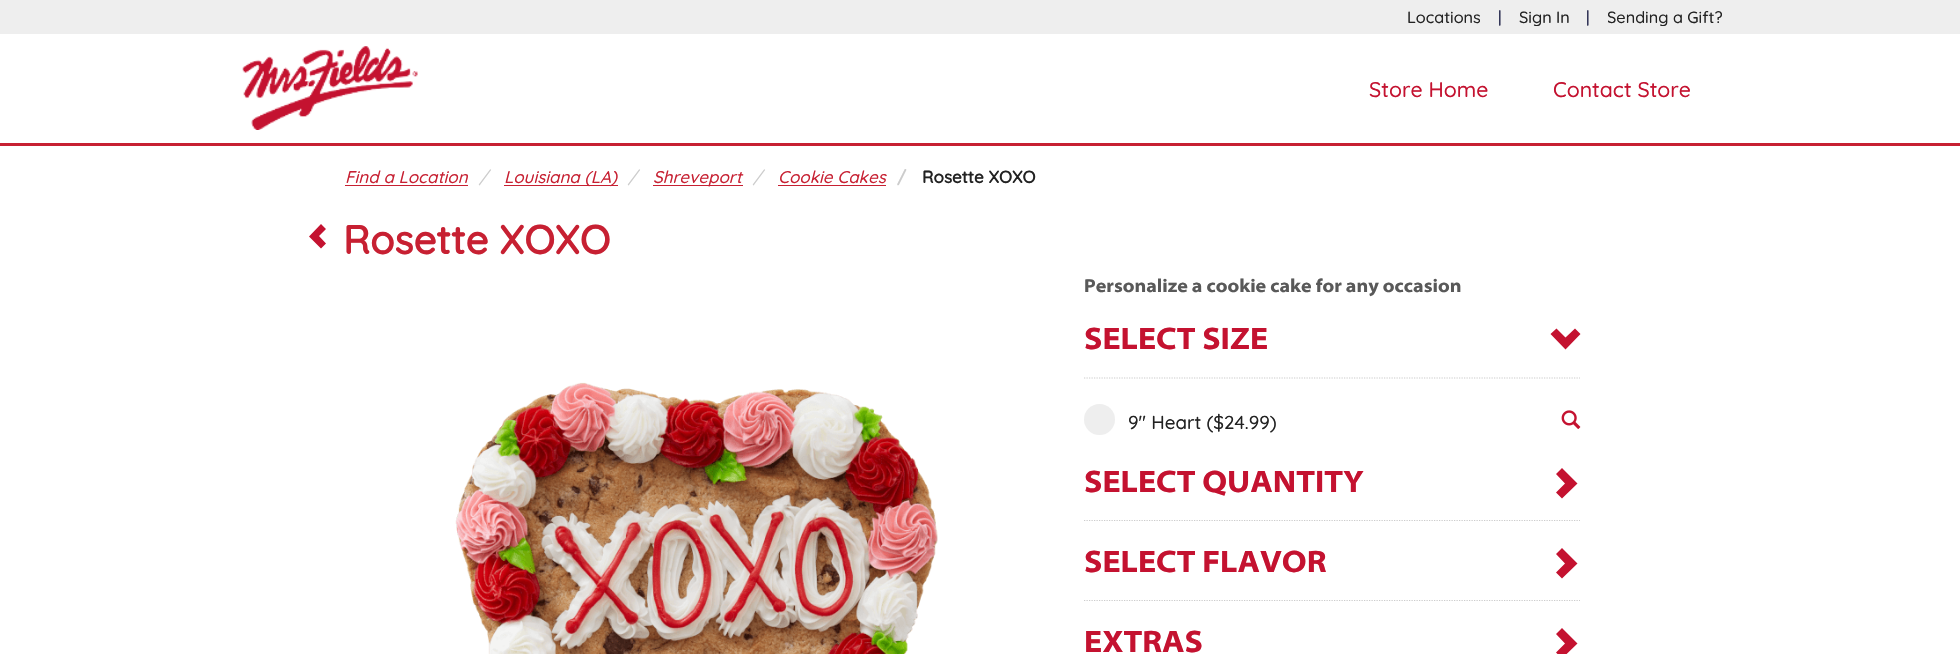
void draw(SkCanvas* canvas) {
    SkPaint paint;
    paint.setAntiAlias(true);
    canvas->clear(0xFFFFFFFF);
    paint.setColor(0xFFEEEEEE);
    canvas->drawRect(SkRect::MakeXYWH(0, 0, 1960, 34), paint);
    SkFont font1(fontMgr->matchFamilyStyle("Quicksand", SkFontStyle(500, SkFontStyle::kNormal_Width, SkFontStyle::kUpright_Slant)), 16.25f);
    font1.setSubpixel(true);
    paint.setColor(0xFF222222);
    canvas->drawString("Locations", 1407, 23, font1, paint);
    paint.setColor(0xFF24274C);
    canvas->drawString("|", 1498, 23, font1, paint);
    canvas->save();
    canvas->clipRect(SkRect::MakeXYWH(1519, 8, 51, 18));
    paint.setColor(0xFF222222);
    canvas->drawString("Sign In", 1519, 23, font1, paint);
    canvas->restore();
    paint.setColor(0xFF24274C);
    canvas->drawString("|", 1586, 23, font1, paint);
    canvas->save();
    canvas->clipRect(SkRect::MakeXYWH(1608, 8, 115, 18));
    paint.setColor(0xFF222222);
    canvas->drawString("Sending a Gift?", 1607, 23, font1, paint);
    canvas->restore();
    paint.setColor(0xFFC72032);
    canvas->drawRect(SkRect::MakeXYWH(0, 143, 1960, 3), paint);
    canvas->drawImageRect(SkImages::DeferredFromEncodedData(SkData::MakeFromFileName("img1.png")), SkRect::MakeXYWH(242, 46, 176, 84), SkSamplingOptions());
    SkFont font2(fontMgr->matchFamilyStyle("Quicksand", SkFontStyle(500, SkFontStyle::kNormal_Width, SkFontStyle::kUpright_Slant)), 21.25f);
    font2.setSubpixel(true);
    paint.setColor(0xFFC41230);
    canvas->drawString("Store Home", 1369, 97, font2, paint);
    canvas->drawString("Contact Store", 1553, 97, font2, paint);
    SkFont font3(fontMgr->matchFamilyStyle("Quicksand", SkFontStyle(500, SkFontStyle::kNormal_Width, SkFontStyle::kItalic_Slant)), 17);
    font3.setSubpixel(true);
    paint.setColor(0xFFC72032);
    canvas->drawString("Find a Location", 345, 183, font3, paint);
    canvas->drawRect(SkRect::MakeXYWH(345, 185, 123, 1), paint);
    paint.setColor(0xFFCCCCCC);
    canvas->drawString("/", 479, 183, font3, paint);
    paint.setColor(0xFFC72032);
    canvas->drawRect(SkRect::MakeXYWH(504, 185, 114, 1), paint);
    canvas->drawString("Louisiana (LA)", 504, 183, font3, paint);
    paint.setColor(0xFFCCCCCC);
    canvas->drawString("/", 628, 183, font3, paint);
    paint.setColor(0xFFC72032);
    canvas->drawRect(SkRect::MakeXYWH(653, 185, 90, 1), paint);
    canvas->drawString("Shreveport", 653, 183, font3, paint);
    paint.setColor(0xFFCCCCCC);
    canvas->drawString("/", 753, 183, font3, paint);
    paint.setColor(0xFFC72032);
    canvas->drawString("Cookie Cakes", 778, 183, font3, paint);
    canvas->drawRect(SkRect::MakeXYWH(778, 185, 108, 1), paint);
    SkFont font4(fontMgr->matchFamilyStyle("Quicksand", SkFontStyle::Bold()), 17);
    font4.setSubpixel(true);
    paint.setColor(0xFFCCCCCC);
    canvas->drawString("/", 897, 183, font4, paint);
    paint.setColor(0xFF222222);
    canvas->drawString("Rosette XOXO", 922, 183, font4, paint);
    paint.setColor(0xFFC41230);
    canvas->drawPath(SkPathBuilder().moveTo(309, 236.5f).lineTo(321, 248.5f).lineTo(326, 243.5f).lineTo(319, 236).lineTo(326, 229).lineTo(321, 224).close().detach(), paint);
    SkFont font5(fontMgr->matchFamilyStyle("Quicksand", SkFontStyle::Bold()), 40);
    font5.setSubpixel(true);
    paint.setColor(0xFFC72032);
    canvas->drawString("Rosette XOXO", 343, 254, font5, paint);
    canvas->drawImageRect(SkImages::DeferredFromEncodedData(SkData::MakeFromFileName("img2.png")), SkRect::MakeXYWH(455, 382, 483, 272), SkSamplingOptions());
    SkFont font6(fontMgr->matchFamilyStyle("Myriad", SkFontStyle::Bold()), 18.75f);
    font6.setSubpixel(true);
    paint.setColor(0xFF595959);
    canvas->drawString("Personalize a cookie cake for any occasion", 1084, 292, font6, paint);
    paint.setStyle(SkPaint::kStroke_Style);
    paint.setStrokeWidth(1.2f);
    paint.setColor(0xFFCCCCCC);
    paint.setPathEffect(SkDashPathEffect::Make({{1.25f, 1.25f}}, 0));
    canvas->drawPath(SkPathBuilder().moveTo(1084, 378).lineTo(1580, 378).detach(), paint);
    paint.setPathEffect(nullptr);
    SkFont font7(fontMgr->matchFamilyStyle("Myriad", SkFontStyle::Bold()), 31.25f);
    font7.setSubpixel(true);
    paint.setStyle(SkPaint::kFill_Style);
    paint.setColor(0xFFC41230);
    canvas->drawString("SELECT SIZE", 1084, 349, font7, paint);
    canvas->drawPath(SkPathBuilder().moveTo(1550.5f, 334).lineTo(1565.5f, 349.5f).lineTo(1580.5f, 334).lineTo(1575, 328.5f).lineTo(1565.5f, 337.5f).lineTo(1556.5f, 328.5f).close().detach(), paint);
    paint.setColor(0xFFEEEEEE);
    canvas->drawCircle(1099.5f, 419.5f, 15.5f, paint);
    SkFont font8(fontMgr->matchFamilyStyle("Quicksand", SkFontStyle(500, SkFontStyle::kNormal_Width, SkFontStyle::kUpright_Slant)), 18.75f);
    font8.setSubpixel(true);
    paint.setColor(0xFF222222);
    canvas->drawString("9\" Heart ($24.99)", 1128, 429, font8, paint);
    canvas->drawImageRect(SkImages::DeferredFromEncodedData(SkData::MakeFromFileName("img3.png")), SkRect::MakeXYWH(1561, 410, 20, 19), SkSamplingOptions());
    paint.setStyle(SkPaint::kStroke_Style);
    paint.setColor(0xFFCCCCCC);
    paint.setPathEffect(SkDashPathEffect::Make({{1.25f, 1.25f}}, 0));
    canvas->drawPath(SkPathBuilder().moveTo(1084, 520.5f).lineTo(1580, 520.5f).detach(), paint);
    paint.setPathEffect(nullptr);
    paint.setStyle(SkPaint::kFill_Style);
    paint.setColor(0xFFC41230);
    canvas->drawString("SELECT QUANTITY", 1084, 492, font7, paint);
    canvas->drawPath(SkPathBuilder().moveTo(1556, 492.5f).lineTo(1565, 483.5f).lineTo(1556, 474).lineTo(1562, 468).lineTo(1577.5f, 483.5f).lineTo(1562, 498.5f).close().detach(), paint);
    paint.setStyle(SkPaint::kStroke_Style);
    paint.setColor(0xFFCCCCCC);
    paint.setPathEffect(SkDashPathEffect::Make({{1.25f, 1.25f}}, 0));
    canvas->drawPath(SkPathBuilder().moveTo(1084, 600.5f).lineTo(1580, 600.5f).detach(), paint);
    paint.setPathEffect(nullptr);
    paint.setStyle(SkPaint::kFill_Style);
    paint.setColor(0xFFC41230);
    canvas->drawString("SELECT FLAVOR", 1084, 572, font7, paint);
    canvas->drawPath(SkPathBuilder().moveTo(1556, 572.5f).lineTo(1565, 563.5f).lineTo(1556, 554).lineTo(1562, 548).lineTo(1577.5f, 563.5f).lineTo(1562, 578.5f).close().detach(), paint);
    canvas->drawString("EXTRAS", 1084, 652, font7, paint);
    canvas->drawPath(SkPathBuilder().moveTo(1556, 652.5f).lineTo(1565, 643.5f).lineTo(1556, 634).lineTo(1562, 628).lineTo(1577.5f, 643.5f).lineTo(1562, 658.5f).close().detach(), paint);
}
